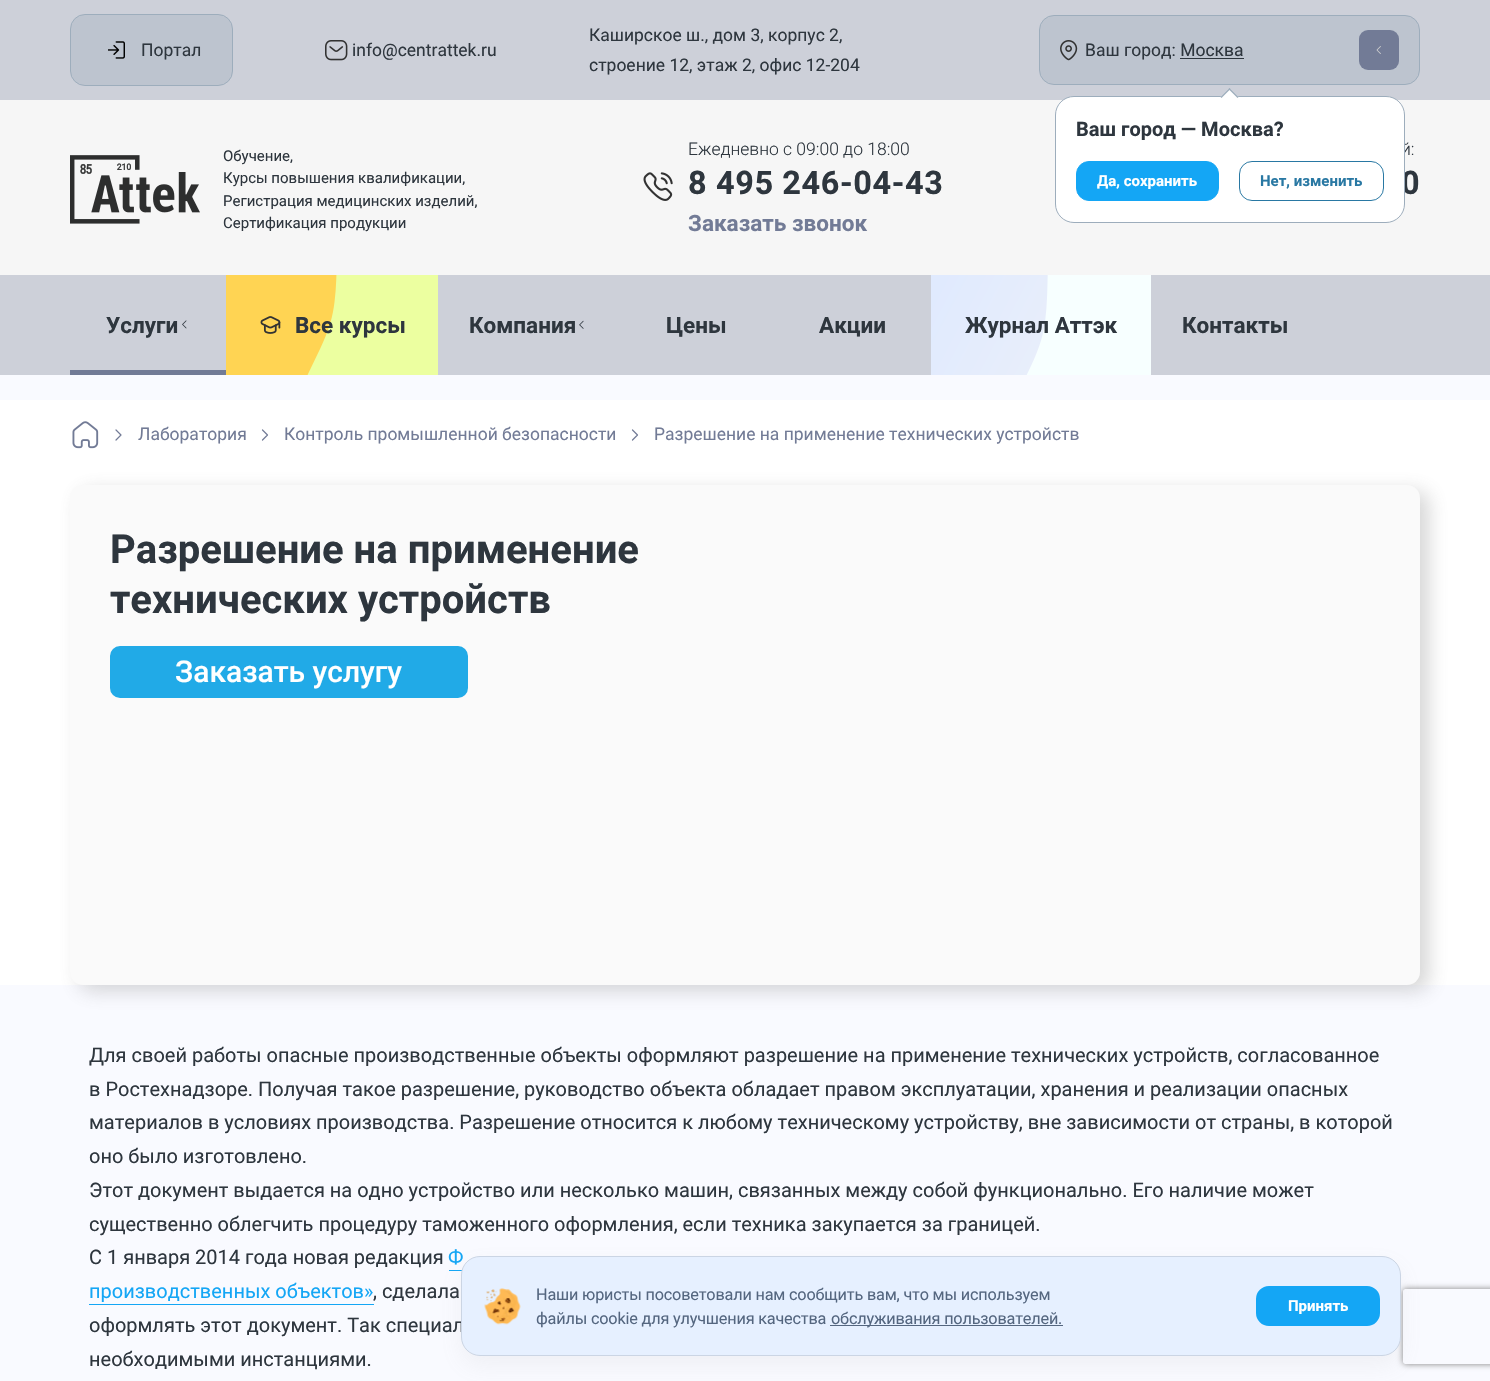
void draw(SkCanvas* canvas) {
    SkPaint paint;
    paint.setAntiAlias(true);
    auto spacedText = [&](const char* s, float x, float y, const SkFont& font, const SkPaint& ink, float letter, float word) {
        std::vector<SkGlyphID> glyphs(font.countText(s, strlen(s), SkTextEncoding::kUTF8));
        std::vector<float> xs(glyphs.size());
        font.textToGlyphs(s, strlen(s), SkTextEncoding::kUTF8, glyphs);
        font.getXPos(glyphs, xs, x);
        float extra = 0;
        for (size_t i = 0; i < glyphs.size(); i++) {
            xs[i] += extra;
            extra += letter + word * (glyphs[i] == font.unicharToGlyph(' '));
        }
        canvas->drawTextBlob(SkTextBlob::MakeFromPosHGlyphs(glyphs, xs, y, font), 0, 0, ink);
    };
    canvas->clear(0xFFF9FAFF);
    paint.setColor(0xFFCDD0D9);
    canvas->drawRect(SkRect::MakeXYWH(0, 0, 1490, 100), paint);
    paint.setColor(0xFFBDC4CF);
    canvas->drawRoundRect(SkRect::MakeXYWH(70.5f, 14.5f, 162, 71), 14.5f, 14.5f, paint);
    paint.setStyle(SkPaint::kStroke_Style);
    paint.setStrokeWidth(1);
    paint.setColor(0xFF9DADBC);
    canvas->drawRoundRect(SkRect::MakeXYWH(70.5f, 14.5f, 162, 71), 14.5f, 14.5f, paint);
    canvas->drawImageRect(SkImages::DeferredFromEncodedData(SkData::MakeFromFileName("img1.png")), SkRect::MakeXYWH(108, 41, 17, 18), SkSamplingOptions());
    SkFont font1(fontMgr->matchFamilyStyle("Roboto", SkFontStyle::Normal()), 17.5f);
    font1.setSubpixel(true);
    paint.setStyle(SkPaint::kFill_Style);
    paint.setColor(0xFF2E363E);
    canvas->drawString("Портал", 141, 56, font1, paint);
    canvas->drawImageRect(SkImages::DeferredFromEncodedData(SkData::MakeFromFileName("img2.png")), SkRect::MakeXYWH(325, 40, 23, 21), SkSamplingOptions());
    canvas->drawString("info@centrattek.ru", 352, 56, font1, paint);
    canvas->drawString("Каширское ш., дом 3, корпус 2,", 589, 41, font1, paint);
    canvas->drawString("строение 12, этаж 2, офис 12-204", 589, 71, font1, paint);
    paint.setColor(0xFFBDC4CF);
    canvas->drawRoundRect(SkRect::MakeXYWH(1039.5f, 15.5f, 380, 69), 14.5f, 14.5f, paint);
    paint.setStyle(SkPaint::kStroke_Style);
    paint.setColor(0xFF9DADBC);
    canvas->drawRoundRect(SkRect::MakeXYWH(1039.5f, 15.5f, 380, 69), 14.5f, 14.5f, paint);
    canvas->drawImageRect(SkImages::DeferredFromEncodedData(SkData::MakeFromFileName("img3.png")), SkRect::MakeXYWH(1060, 40, 18, 21), SkSamplingOptions());
    paint.setStyle(SkPaint::kFill_Style);
    paint.setColor(0xFF2E363E);
    canvas->drawString("Ваш город: Москва", 1085, 56, font1, paint);
    canvas->drawRect(SkRect::MakeXYWH(1180, 58, 64, 1), paint);
    paint.setColor(0xFF727B96);
    canvas->drawRoundRect(SkRect::MakeXYWH(1359, 30, 40, 40), 9, 9, paint);
    canvas->drawImageRect(SkImages::DeferredFromEncodedData(SkData::MakeFromFileName("img4.png")), SkRect::MakeXYWH(1376, 46, 5, 8), SkSamplingOptions());
    paint.setColor(0xFFF6F6F6);
    canvas->drawRect(SkRect::MakeXYWH(0, 100, 1490, 175), paint);
    canvas->drawImageRect(SkImages::DeferredFromEncodedData(SkData::MakeFromFileName("img5.png")), SkRect::MakeXYWH(70, 155, 130, 69), SkSamplingOptions());
    SkFont font2(fontMgr->matchFamilyStyle("Roboto", SkFontStyle::Normal()), 15);
    font2.setSubpixel(true);
    paint.setColor(0xFF2E363E);
    canvas->drawString("Обучение,", 223, 161, font2, paint);
    canvas->drawString("Курсы повышения квалификации,", 223, 183, font2, paint);
    canvas->drawString("Регистрация медицинских изделий,", 223, 206, font2, paint);
    canvas->drawString("Сертификация продукции", 223, 228, font2, paint);
    SkFont font3(fontMgr->matchFamilyStyle("Roboto", SkFontStyle(300, SkFontStyle::kNormal_Width, SkFontStyle::kUpright_Slant)), 17.5f);
    font3.setSubpixel(true);
    canvas->drawString("Ежедневно с 09:00 до 18:00", 688, 155, font3, paint);
    canvas->drawImageRect(SkImages::DeferredFromEncodedData(SkData::MakeFromFileName("img6.png")), SkRect::MakeXYWH(643, 172, 30, 29), SkSamplingOptions());
    SkFont font4(fontMgr->matchFamilyStyle("Roboto", SkFontStyle::Bold()), 32.5f);
    font4.setSubpixel(true);
    spacedText("8 495 246-04-43", 688, 194, font4, paint, 0.6f, 0);
    SkFont font5(fontMgr->matchFamilyStyle("Roboto", SkFontStyle::Bold()), 22.5f);
    font5.setSubpixel(true);
    paint.setColor(0xFF727B96);
    canvas->drawString("Заказать звонок", 688, 231, font5, paint);
    paint.setColor(0xFF2E363E);
    canvas->drawString("й:", 1401, 155, font3, paint);
    spacedText("0", 1401, 194, font4, paint, 0.6f, 0);
    paint.setColor(0xFFCDD0D9);
    canvas->drawRect(SkRect::MakeXYWH(0, 275, 1490, 100), paint);
    paint.setColor(0xFF2E363E);
    canvas->drawString("Услуги", 106, 333, font5, paint);
    canvas->drawImageRect(SkImages::DeferredFromEncodedData(SkData::MakeFromFileName("img7.png")), SkRect::MakeXYWH(182, 320, 5, 9), SkSamplingOptions());
    paint.setColor(0xFF727B96);
    canvas->drawRect(SkRect::MakeXYWH(70, 370, 156, 5), paint);
    canvas->drawImageRect(SkImages::DeferredFromEncodedData(SkData::MakeFromFileName("img8.png")), SkRect::MakeXYWH(226, 275, 212, 100), SkSamplingOptions());
    canvas->drawImageRect(SkImages::DeferredFromEncodedData(SkData::MakeFromFileName("img9.png")), SkRect::MakeXYWH(260, 316, 21, 18), SkSamplingOptions());
    paint.setColor(0xFF2E363E);
    canvas->drawString("Все курсы", 295, 333, font5, paint);
    canvas->drawString("Компания", 469, 333, font5, paint);
    canvas->drawImageRect(SkImages::DeferredFromEncodedData(SkData::MakeFromFileName("img10.png")), SkRect::MakeXYWH(579, 320, 5, 9), SkSamplingOptions());
    canvas->drawString("Цены", 666, 333, font5, paint);
    canvas->drawString("Акции", 819, 333, font5, paint);
    canvas->drawImageRect(SkImages::DeferredFromEncodedData(SkData::MakeFromFileName("img11.png")), SkRect::MakeXYWH(931, 275, 220, 100), SkSamplingOptions());
    canvas->drawString("Журнал Аттэк", 965, 333, font5, paint);
    canvas->drawString("Контакты", 1182, 333, font5, paint);
    paint.setColor(0xFFFFFFFF);
    canvas->drawRoundRect(SkRect::MakeXYWH(1055.5f, 96.5f, 349, 126), 18.5f, 18.5f, paint);
    paint.setStyle(SkPaint::kStroke_Style);
    paint.setColor(0xFF9DADBC);
    canvas->drawRoundRect(SkRect::MakeXYWH(1055.5f, 96.5f, 349, 126), 18.5f, 18.5f, paint);
    paint.setStyle(SkPaint::kFill_Style);
    paint.setColor(0xFFFFFFFF);
    canvas->drawPath(SkPathBuilder().moveTo(1229.5f, 88).lineTo(1238.5f, 97).lineTo(1229.5f, 105.5f).lineTo(1220.5f, 97).close().detach(), paint);
    paint.setColor(0xFF9DADBC);
    canvas->drawPath(SkPathBuilder().moveTo(1229.5f, 88).lineTo(1238.5f, 97).lineTo(1237.5f, 98).lineTo(1228.5f, 89).close().detach(), paint);
    canvas->drawPath(SkPathBuilder().moveTo(1229.5f, 88).lineTo(1230.5f, 89).lineTo(1221.5f, 98).lineTo(1220.5f, 97).close().detach(), paint);
    SkFont font6(fontMgr->matchFamilyStyle("Roboto", SkFontStyle::Bold()), 20);
    font6.setSubpixel(true);
    paint.setColor(0xFF2E363E);
    canvas->drawString("Ваш город — Москва?", 1076, 136, font6, paint);
    paint.setColor(0xFF14A6F5);
    canvas->drawRoundRect(SkRect::MakeXYWH(1076.5f, 161.5f, 142, 39), 12.5f, 12.5f, paint);
    paint.setStyle(SkPaint::kStroke_Style);
    canvas->drawRoundRect(SkRect::MakeXYWH(1076.5f, 161.5f, 142, 39), 12.5f, 12.5f, paint);
    SkFont font7(fontMgr->matchFamilyStyle("Roboto", SkFontStyle::Bold()), 15);
    font7.setSubpixel(true);
    paint.setStyle(SkPaint::kFill_Style);
    paint.setColor(0xFFFFFFFF);
    canvas->drawString("Да, сохранить", 1097, 186, font7, paint);
    paint.setStyle(SkPaint::kStroke_Style);
    paint.setColor(0xFF2978A3);
    canvas->drawRoundRect(SkRect::MakeXYWH(1239.5f, 161.5f, 144, 39), 12.5f, 12.5f, paint);
    paint.setStyle(SkPaint::kFill_Style);
    canvas->drawString("Нет, изменить", 1260, 186, font7, paint);
    paint.setColor(0xFFFFFFFF);
    canvas->drawRect(SkRect::MakeXYWH(0, 400, 1490, 585), paint);
    canvas->drawImageRect(SkImages::DeferredFromEncodedData(SkData::MakeFromFileName("img12.png")), SkRect::MakeXYWH(72, 421, 27, 28), SkSamplingOptions());
    paint.setStyle(SkPaint::kStroke_Style);
    paint.setStrokeWidth(1.2f);
    paint.setStrokeCap(SkPaint::kRound_Cap);
    paint.setStrokeJoin(SkPaint::kRound_Join);
    paint.setColor(0xFF727B96);
    canvas->drawPath(SkPathBuilder().moveTo(116, 430).lineTo(121, 435).lineTo(116, 440).detach(), paint);
    paint.setStyle(SkPaint::kFill_Style);
    canvas->drawString("Лаборатория", 138, 440, font1, paint);
    paint.setStyle(SkPaint::kStroke_Style);
    canvas->drawPath(SkPathBuilder().moveTo(262.5f, 430).lineTo(267.5f, 435).lineTo(262.5f, 440).detach(), paint);
    paint.setStyle(SkPaint::kFill_Style);
    canvas->drawString("Контроль промышленной безопасности", 284, 440, font1, paint);
    paint.setStyle(SkPaint::kStroke_Style);
    canvas->drawPath(SkPathBuilder().moveTo(632.5f, 430).lineTo(637.5f, 435).lineTo(632.5f, 440).detach(), paint);
    paint.setStyle(SkPaint::kFill_Style);
    canvas->drawString("Разрешение на применение технических устройств", 654, 440, font1, paint);
    paint.setColor(0x405C5C5C);
    paint.setMaskFilter(SkMaskFilter::MakeBlur(kNormal_SkBlurStyle, 9.5f));
    canvas->drawRoundRect(SkRect::MakeXYWH(79, 491, 1350, 500), 13, 13, paint);
    paint.setMaskFilter(nullptr);
    paint.setColor(0xFFFAFAFA);
    canvas->drawRoundRect(SkRect::MakeXYWH(70, 485, 1350, 500), 13, 13, paint);
    SkFont font8(fontMgr->matchFamilyStyle("Roboto", SkFontStyle::Bold()), 40);
    font8.setSubpixel(true);
    paint.setColor(0xFF2E363E);
    canvas->drawString("Разрешение на применение", 110, 563, font8, paint);
    canvas->drawString("технических устройств", 110, 613, font8, paint);
    paint.setColor(0xFF21AAE7);
    canvas->drawRoundRect(SkRect::MakeXYWH(112.5f, 648.5f, 353, 47), 7.5f, 7.5f, paint);
    paint.setStyle(SkPaint::kStroke_Style);
    paint.setStrokeWidth(5);
    paint.setStrokeCap(SkPaint::kButt_Cap);
    paint.setStrokeJoin(SkPaint::kMiter_Join);
    canvas->drawRoundRect(SkRect::MakeXYWH(112.5f, 648.5f, 353, 47), 7.5f, 7.5f, paint);
    SkFont font9(fontMgr->matchFamilyStyle("Roboto", SkFontStyle(500, SkFontStyle::kNormal_Width, SkFontStyle::kUpright_Slant)), 30);
    font9.setSubpixel(true);
    paint.setStyle(SkPaint::kFill_Style);
    paint.setColor(0xFFFFFFFF);
    canvas->drawString("Заказать услугу", 175, 682, font9, paint);
    SkFont font10(fontMgr->matchFamilyStyle("Roboto", SkFontStyle::Normal()), 20);
    font10.setSubpixel(true);
    paint.setColor(0xFF2E363E);
    canvas->drawString("Для своей работы опасные производственные объекты оформляют разрешение на применение технических устройств, согласованное", 89, 1062, font10, paint);
    canvas->drawString("в Ростехнадзоре. Получая такое разрешение, руководство объекта обладает правом эксплуатации, хранения и реализации опасных", 89, 1096, font10, paint);
    canvas->drawString("материалов в условиях производства. Разрешение относится к любому техническому устройству, вне зависимости от страны, в которой", 89, 1129, font10, paint);
    canvas->drawString("оно было изготовлено.", 89, 1163, font10, paint);
    canvas->drawString("Этот документ выдается на одно устройство или несколько машин, связанных между собой функционально. Его наличие может", 89, 1197, font10, paint);
    canvas->drawString("существенно облегчить процедуру таможенного оформления, если техника закупается за границей.", 89, 1231, font10, paint);
    canvas->drawString("С 1 января 2014 года новая редакция", 89, 1264, font10, paint);
    paint.setColor(0xFF14A6F5);
    canvas->drawString("Ф", 448, 1264, font10, paint);
    canvas->drawRect(SkRect::MakeXYWH(449, 1270, 13, 1), paint);
    canvas->drawString("производственных объектов»", 89, 1298, font10, paint);
    canvas->drawRect(SkRect::MakeXYWH(89, 1304, 285, 1), paint);
    paint.setColor(0xFF2E363E);
    canvas->drawString(", сделала", 373, 1298, font10, paint);
    canvas->drawString("оформлять этот документ. Так специал", 89, 1332, font10, paint);
    canvas->drawString("необходимыми инстанциями.", 89, 1366, font10, paint);
    canvas->save();
    canvas->clipPath(SkPathBuilder(SkPathFillType::kEvenOdd).moveTo(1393, 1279).lineTo(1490, 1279).lineTo(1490, 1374).lineTo(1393, 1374).close().moveTo(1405.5f, 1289).lineTo(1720.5f, 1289).cubicTo(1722, 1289, 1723, 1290, 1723, 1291.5f).lineTo(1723, 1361.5f).cubicTo(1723, 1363, 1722, 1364, 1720.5f, 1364).lineTo(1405.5f, 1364).cubicTo(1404, 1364, 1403, 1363, 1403, 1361.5f).lineTo(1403, 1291.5f).cubicTo(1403, 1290, 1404, 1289, 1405.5f, 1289).close().detach(), true);
    paint.setColor(0xFF808080);
    paint.setMaskFilter(SkMaskFilter::MakeBlur(kNormal_SkBlurStyle, 3));
    canvas->drawRoundRect(SkRect::MakeXYWH(1403, 1289, 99, 75), 2.5f, 2.5f, paint);
    paint.setMaskFilter(nullptr);
    canvas->restore();
    paint.setColor(0x1A999999);
    paint.setMaskFilter(SkMaskFilter::MakeBlur(kNormal_SkBlurStyle, 11));
    canvas->drawRoundRect(SkRect::MakeXYWH(461, 1266, 940, 100), 19, 19, paint);
    paint.setMaskFilter(nullptr);
    paint.setColor(0xFFE6F0FF);
    canvas->drawRoundRect(SkRect::MakeXYWH(461.5f, 1256.5f, 939, 99), 18.5f, 18.5f, paint);
    paint.setStyle(SkPaint::kStroke_Style);
    paint.setStrokeWidth(1);
    paint.setColor(0xFFCBD5E4);
    canvas->drawRoundRect(SkRect::MakeXYWH(461.5f, 1256.5f, 939, 99), 18.5f, 18.5f, paint);
    canvas->drawImageRect(SkImages::DeferredFromEncodedData(SkData::MakeFromFileName("img13.png")), SkRect::MakeXYWH(484, 1288, 37, 37), SkSamplingOptions());
    SkFont font11(fontMgr->matchFamilyStyle("Roboto", SkFontStyle::Normal()), 16.25f);
    font11.setSubpixel(true);
    paint.setStyle(SkPaint::kFill_Style);
    paint.setColor(0xFF54667F);
    spacedText("Наши юристы посоветовали нам сообщить вам, что мы используем", 536, 1300, font11, paint, -0.18f, 0);
    spacedText("файлы cookie для улучшения качества", 536, 1324, font11, paint, -0.18f, 0);
    canvas->drawRect(SkRect::MakeXYWH(830, 1325, 233, 1), paint);
    spacedText("обслуживания пользователей.", 831, 1324, font11, paint, -0.18f, 0);
    paint.setColor(0xFF14A6F5);
    canvas->drawRoundRect(SkRect::MakeXYWH(1257.5f, 1287.5f, 121, 37), 11.5f, 11.5f, paint);
    paint.setStyle(SkPaint::kStroke_Style);
    paint.setStrokeWidth(3);
    canvas->drawRoundRect(SkRect::MakeXYWH(1257.5f, 1287.5f, 121, 37), 11.5f, 11.5f, paint);
    paint.setStyle(SkPaint::kFill_Style);
    paint.setColor(0xFFFFFFFF);
    canvas->drawString("Принять", 1288, 1311, font7, paint);
}
